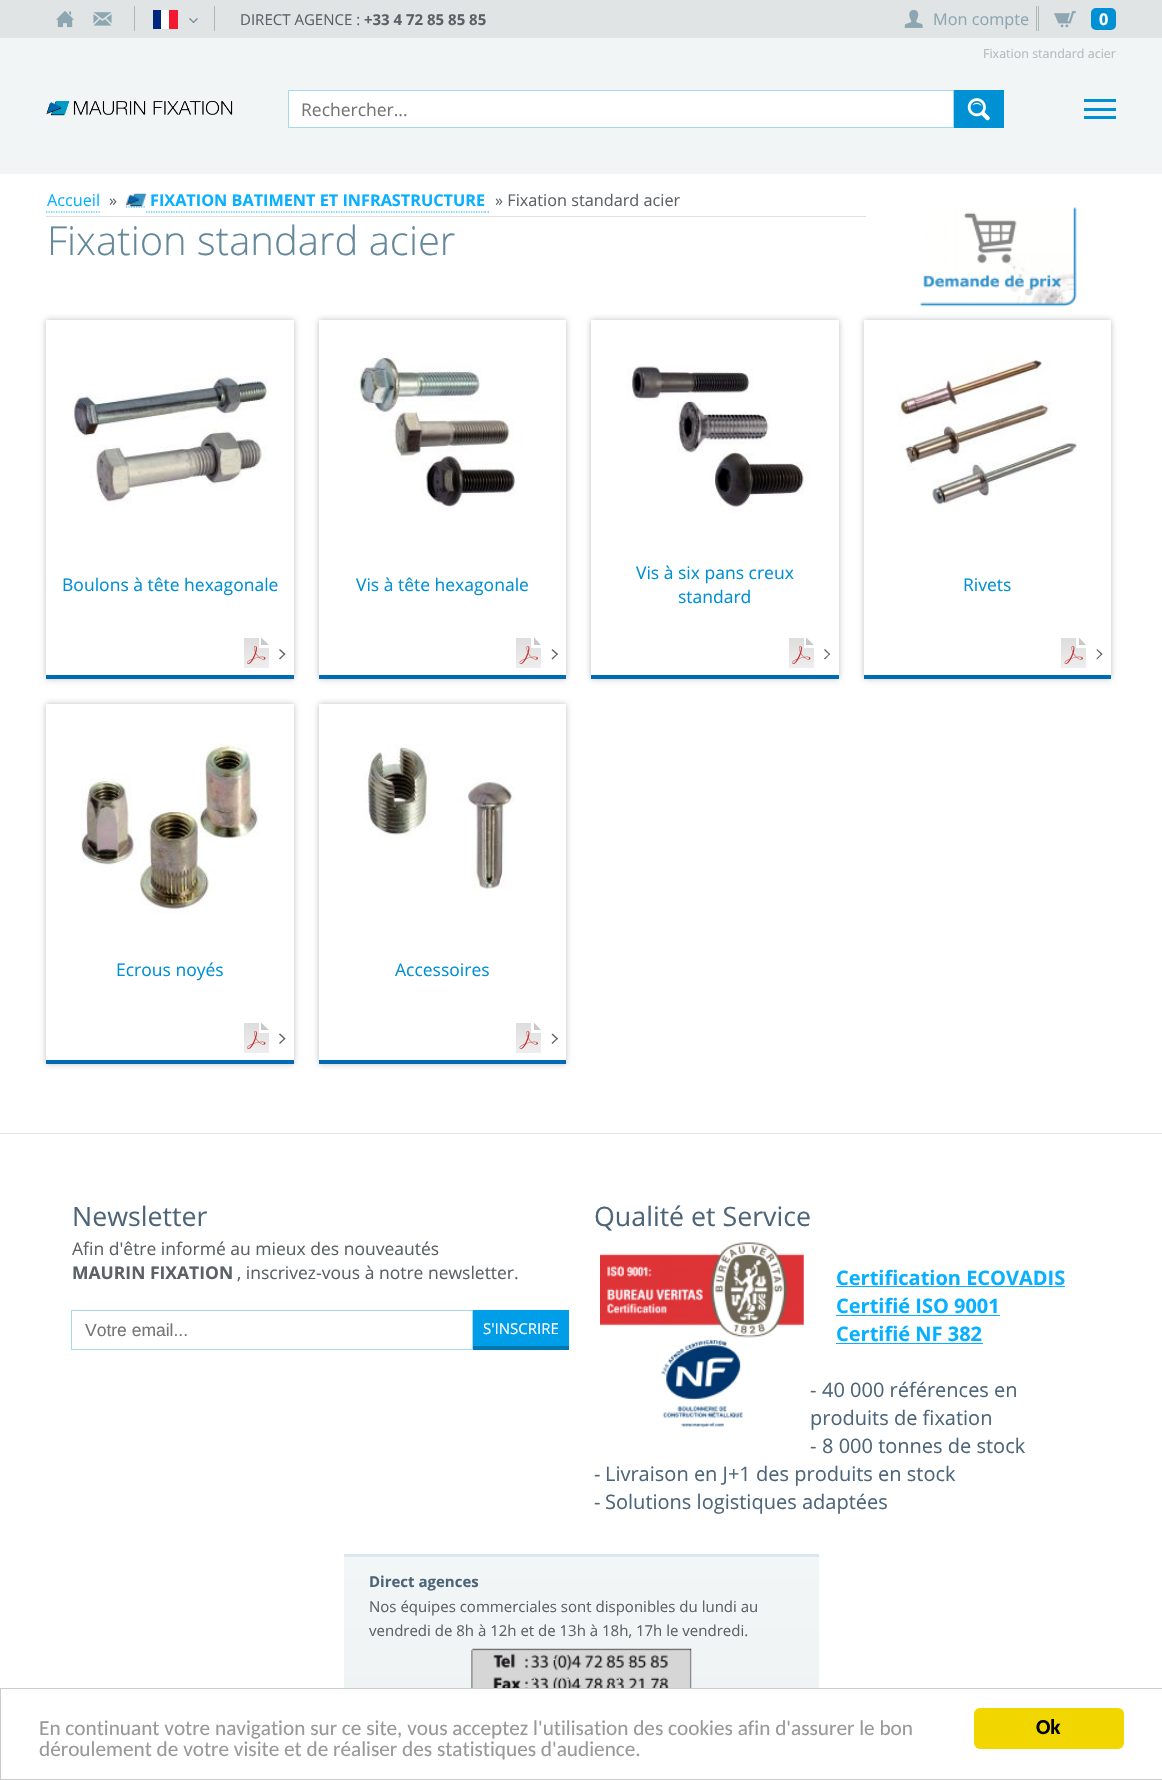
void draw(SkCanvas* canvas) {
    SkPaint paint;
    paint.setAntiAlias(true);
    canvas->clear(0xFFFFFFFF);
    paint.setColor(0xFFF1F5F6);
    canvas->drawRect(SkRect::MakeXYWH(0, 38, 1162, 136), paint);
    paint.setColor(0xFFE0E4E5);
    canvas->drawRect(SkRect::MakeXYWH(0, 0, 1162, 38), paint);
    canvas->drawImageRect(SkImages::DeferredFromEncodedData(SkData::MakeFromFileName("img1.png")), SkRect::MakeXYWH(56, 11, 18, 17), SkSamplingOptions());
    canvas->drawImageRect(SkImages::DeferredFromEncodedData(SkData::MakeFromFileName("img2.png")), SkRect::MakeXYWH(93, 12, 19, 14), SkSamplingOptions());
    paint.setColor(0xFFB3B6B7);
    canvas->drawRect(SkRect::MakeXYWH(134, 6, 1, 25), paint);
    paint.setColor(0xFFFFFFFF);
    canvas->drawRect(SkRect::MakeXYWH(161, 10, 8, 19), paint);
    paint.setColor(0xFF00267F);
    canvas->drawRect(SkRect::MakeXYWH(153, 10, 8, 19), paint);
    paint.setColor(0xFFF31830);
    canvas->drawRect(SkRect::MakeXYWH(169, 10, 9, 19), paint);
    paint.setColor(0xFF72879D);
    canvas->drawPath(SkPathBuilder().moveTo(197, 18).lineTo(198, 19).lineTo(193.5f, 23).lineTo(192.5f, 22.5f).close().detach(), paint);
    canvas->drawPath(SkPathBuilder().moveTo(190, 18).lineTo(194.5f, 22.5f).lineTo(193.5f, 23).lineTo(189, 19).close().detach(), paint);
    paint.setColor(0xFFB3B6B7);
    canvas->drawRect(SkRect::MakeXYWH(214, 6, 1, 25), paint);
    SkFont font1(fontMgr->matchFamilyStyle("Open Sans", SkFontStyle::Normal()), 15);
    font1.setSubpixel(true);
    paint.setColor(0xFF5C6166);
    canvas->drawString("DIRECT AGENCE :", 240, 25, font1, paint);
    SkFont font2(fontMgr->matchFamilyStyle("Open Sans", SkFontStyle::Bold()), 15);
    font2.setSubpixel(true);
    canvas->drawString("+33 4 72 85 85 85", 364, 25, font2, paint);
    canvas->drawImageRect(SkImages::DeferredFromEncodedData(SkData::MakeFromFileName("img3.png")), SkRect::MakeXYWH(904, 9, 19, 19), SkSamplingOptions());
    SkFont font3(fontMgr->matchFamilyStyle("Open Sans", SkFontStyle::Normal()), 16.25f);
    font3.setSubpixel(true);
    paint.setColor(0xFF8EA6B1);
    canvas->drawString("Mon compte", 933, 25, font3, paint);
    paint.setColor(0xFFB3B6B7);
    canvas->drawRect(SkRect::MakeXYWH(1036, 6, 1, 25), paint);
    canvas->drawRect(SkRect::MakeXYWH(1038, 6, 1, 25), paint);
    canvas->drawImageRect(SkImages::DeferredFromEncodedData(SkData::MakeFromFileName("img4.png")), SkRect::MakeXYWH(1054, 11, 22, 17), SkSamplingOptions());
    paint.setColor(0xFF0090D4);
    canvas->drawRoundRect(SkRect::MakeXYWH(1091, 8, 25, 22), 5, 5, paint);
    SkFont font4(fontMgr->matchFamilyStyle("Open Sans", SkFontStyle::Bold()), 16.25f);
    font4.setSubpixel(true);
    paint.setColor(0xFFFFFFFF);
    canvas->drawString("0", 1099, 25, font4, paint);
    SkFont font5(fontMgr->matchFamilyStyle("Open Sans", SkFontStyle::Normal()), 12.5f);
    font5.setSubpixel(true);
    paint.setColor(0xFFB5BABC);
    canvas->drawString("Fixation standard acier", 983, 58, font5, paint);
    canvas->drawImageRect(SkImages::DeferredFromEncodedData(SkData::MakeFromFileName("img5.png")), SkRect::MakeXYWH(46, 100, 187, 16), SkSamplingOptions());
    paint.setColor(0xFFFFFFFF);
    canvas->drawRect(SkRect::MakeXYWH(288.5f, 90.5f, 665, 37), paint);
    paint.setStyle(SkPaint::kStroke_Style);
    paint.setStrokeWidth(1);
    paint.setColor(0xFFA6D8F0);
    canvas->drawRect(SkRect::MakeXYWH(288.5f, 90.5f, 665, 37), paint);
    SkFont font6(fontMgr->matchFamilyStyle("Open Sans", SkFontStyle::Normal()), 17.5f);
    font6.setSubpixel(true);
    paint.setStyle(SkPaint::kFill_Style);
    paint.setColor(0xFF757575);
    canvas->drawString("Rechercher...", 301, 116, font6, paint);
    paint.setColor(0xFF0090D4);
    canvas->drawRect(SkRect::MakeXYWH(954, 90, 50, 38), paint);
    canvas->drawImageRect(SkImages::DeferredFromEncodedData(SkData::MakeFromFileName("img6.png")), SkRect::MakeXYWH(967, 98, 23, 23), SkSamplingOptions());
    canvas->drawRect(SkRect::MakeXYWH(1084, 99, 32, 3), paint);
    canvas->drawRect(SkRect::MakeXYWH(1084, 108, 32, 3), paint);
    canvas->drawRect(SkRect::MakeXYWH(1084, 116, 32, 3), paint);
    paint.setColor(0xFFE1E1E1);
    canvas->drawRect(SkRect::MakeXYWH(46, 216, 820, 1), paint);
    paint.setColor(0xFF08B0FF);
    canvas->drawString("Accueil", 47, 206, font3, paint);
    paint.setStyle(SkPaint::kStroke_Style);
    paint.setStrokeWidth(1.2f);
    paint.setPathEffect(SkDashPathEffect::Make({{1.25f, 1.25f}}, 0));
    canvas->drawPath(SkPathBuilder().moveTo(46, 212).lineTo(100, 212).detach(), paint);
    paint.setPathEffect(nullptr);
    paint.setStyle(SkPaint::kFill_Style);
    paint.setColor(0xFF5C6166);
    canvas->drawString("»", 109, 206, font3, paint);
    paint.setStyle(SkPaint::kStroke_Style);
    paint.setColor(0xFF08B0FF);
    paint.setPathEffect(SkDashPathEffect::Make({{1.25f, 1.25f}}, 0));
    canvas->drawPath(SkPathBuilder().moveTo(126, 207).lineTo(146, 207).detach(), paint);
    paint.setPathEffect(nullptr);
    canvas->drawImageRect(SkImages::DeferredFromEncodedData(SkData::MakeFromFileName("img7.png")), SkRect::MakeXYWH(126, 193, 21, 14), SkSamplingOptions());
    paint.setStyle(SkPaint::kFill_Style);
    canvas->drawString("FIXATION BATIMENT ET INFRASTRUCTURE", 150, 206, font4, paint);
    paint.setStyle(SkPaint::kStroke_Style);
    paint.setPathEffect(SkDashPathEffect::Make({{1.25f, 1.25f}}, 0));
    canvas->drawPath(SkPathBuilder().moveTo(146, 212).lineTo(485, 212).detach(), paint);
    paint.setPathEffect(nullptr);
    canvas->drawPath(SkPathBuilder().moveTo(485, 212).lineTo(486, 212).moveTo(487.5f, 212).lineTo(489, 212).detach(), paint);
    paint.setStyle(SkPaint::kFill_Style);
    paint.setColor(0xFF5C6166);
    canvas->drawString("» Fixation standard acier", 495, 206, font3, paint);
    SkFont font7(fontMgr->matchFamilyStyle("Open Sans", SkFontStyle(300, SkFontStyle::kNormal_Width, SkFontStyle::kUpright_Slant)), 40);
    font7.setSubpixel(true);
    paint.setColor(0xFF63889A);
    canvas->drawString("Fixation standard acier", 47, 255, font7, paint);
    canvas->drawImageRect(SkImages::DeferredFromEncodedData(SkData::MakeFromFileName("img8.png")), SkRect::MakeXYWH(919, 207, 158, 100), SkSamplingOptions());
    paint.setColor(0x40000000);
    paint.setMaskFilter(SkMaskFilter::MakeBlur(kNormal_SkBlurStyle, 3));
    canvas->drawRect(SkRect::MakeXYWH(46, 320, 248, 359), paint);
    paint.setMaskFilter(nullptr);
    paint.setColor(0xFFFFFFFF);
    canvas->drawRect(SkRect::MakeXYWH(46, 320, 248, 355), paint);
    paint.setColor(0xFF006AB3);
    canvas->drawRect(SkRect::MakeXYWH(46, 675, 248, 4), paint);
    canvas->drawImageRect(SkImages::DeferredFromEncodedData(SkData::MakeFromFileName("img9.png")), SkRect::MakeXYWH(72, 376, 196, 129), SkSamplingOptions());
    paint.setColor(0xFF0090D4);
    canvas->drawString("Boulons à tête hexagonale", 62, 591, font6, paint);
    {
        const SkColor colors[] = {0xFFDDDDDD, 0xFFEEEEEE};
        const float stops[] = {0, 1};
        const SkPoint ends[] = {{256, 638}, {256, 668}};
        paint.setShader(SkGradientShader::MakeLinear(ends, colors, stops, 2, SkTileMode::kClamp));
        paint.setAlpha(255);
    }
    canvas->drawRect(SkRect::MakeXYWH(244, 638, 25, 30), paint);
    canvas->drawImageRect(SkImages::DeferredFromEncodedData(SkData::MakeFromFileName("img10.png")), SkRect::MakeXYWH(247, 646, 19, 18), SkSamplingOptions());
    paint.setShader(nullptr);
    paint.setColor(0xFFFFFFFF);
    canvas->drawRect(SkRect::MakeXYWH(259, 638, 10, 10), paint);
    paint.setColor(0xFFC8C8C8);
    canvas->drawPath(SkPathBuilder().moveTo(261, 645).lineTo(261, 637.5f).lineTo(269, 645).close().detach(), paint);
    paint.setColor(0xFF5C6166);
    canvas->drawPath(SkPathBuilder().moveTo(279, 650).lineTo(280, 649).lineTo(285.5f, 654).lineTo(284.5f, 655).close().detach(), paint);
    canvas->drawPath(SkPathBuilder().moveTo(279, 658.5f).lineTo(284.5f, 653.5f).lineTo(285.5f, 654).lineTo(280, 659.5f).close().detach(), paint);
    paint.setColor(0x40000000);
    paint.setMaskFilter(SkMaskFilter::MakeBlur(kNormal_SkBlurStyle, 3));
    canvas->drawRect(SkRect::MakeXYWH(319, 320, 247, 359), paint);
    paint.setMaskFilter(nullptr);
    paint.setColor(0xFFFFFFFF);
    canvas->drawRect(SkRect::MakeXYWH(319, 320, 247, 355), paint);
    paint.setColor(0xFF006AB3);
    canvas->drawRect(SkRect::MakeXYWH(319, 675, 247, 4), paint);
    canvas->drawImageRect(SkImages::DeferredFromEncodedData(SkData::MakeFromFileName("img11.png")), SkRect::MakeXYWH(353, 352, 170, 159), SkSamplingOptions());
    paint.setColor(0xFF0090D4);
    canvas->drawString("Vis à tête hexagonale", 356, 591, font6, paint);
    {
        const SkColor colors[] = {0xFFDDDDDD, 0xFFEEEEEE};
        const float stops[] = {0, 1};
        const SkPoint ends[] = {{529, 638}, {529, 668}};
        paint.setShader(SkGradientShader::MakeLinear(ends, colors, stops, 2, SkTileMode::kClamp));
        paint.setAlpha(255);
    }
    canvas->drawRect(SkRect::MakeXYWH(516, 638, 25, 30), paint);
    canvas->drawImageRect(SkImages::DeferredFromEncodedData(SkData::MakeFromFileName("img12.png")), SkRect::MakeXYWH(519, 646, 19, 18), SkSamplingOptions());
    paint.setShader(nullptr);
    paint.setColor(0xFFFFFFFF);
    canvas->drawRect(SkRect::MakeXYWH(531, 638, 10, 10), paint);
    paint.setColor(0xFFC8C8C8);
    canvas->drawPath(SkPathBuilder().moveTo(534, 645).lineTo(534, 637.5f).lineTo(541, 645).close().detach(), paint);
    paint.setColor(0xFF5C6166);
    canvas->drawPath(SkPathBuilder().moveTo(551.5f, 650).lineTo(552.5f, 649).lineTo(558, 654).lineTo(557, 655).close().detach(), paint);
    canvas->drawPath(SkPathBuilder().moveTo(551.5f, 658.5f).lineTo(557, 653.5f).lineTo(558, 654).lineTo(552.5f, 659.5f).close().detach(), paint);
    paint.setColor(0x40000000);
    paint.setMaskFilter(SkMaskFilter::MakeBlur(kNormal_SkBlurStyle, 3));
    canvas->drawRect(SkRect::MakeXYWH(591, 320, 248, 359), paint);
    paint.setMaskFilter(nullptr);
    paint.setColor(0xFFFFFFFF);
    canvas->drawRect(SkRect::MakeXYWH(591, 320, 248, 355), paint);
    paint.setColor(0xFF006AB3);
    canvas->drawRect(SkRect::MakeXYWH(591, 675, 248, 4), paint);
    canvas->drawImageRect(SkImages::DeferredFromEncodedData(SkData::MakeFromFileName("img13.png")), SkRect::MakeXYWH(626, 366, 178, 147), SkSamplingOptions());
    paint.setColor(0xFF0090D4);
    canvas->drawString("Vis à six pans creux", 636, 579, font6, paint);
    canvas->drawString("standard", 678, 603, font6, paint);
    {
        const SkColor colors[] = {0xFFDDDDDD, 0xFFEEEEEE};
        const float stops[] = {0, 1};
        const SkPoint ends[] = {{801, 638}, {801, 668}};
        paint.setShader(SkGradientShader::MakeLinear(ends, colors, stops, 2, SkTileMode::kClamp));
        paint.setAlpha(255);
    }
    canvas->drawRect(SkRect::MakeXYWH(789, 638, 25, 30), paint);
    canvas->drawImageRect(SkImages::DeferredFromEncodedData(SkData::MakeFromFileName("img10.png")), SkRect::MakeXYWH(792, 646, 19, 18), SkSamplingOptions());
    paint.setShader(nullptr);
    paint.setColor(0xFFFFFFFF);
    canvas->drawRect(SkRect::MakeXYWH(804, 638, 10, 10), paint);
    paint.setColor(0xFFC8C8C8);
    canvas->drawPath(SkPathBuilder().moveTo(806, 645).lineTo(806, 637.5f).lineTo(814, 645).close().detach(), paint);
    paint.setColor(0xFF5C6166);
    canvas->drawPath(SkPathBuilder().moveTo(824, 650).lineTo(825, 649).lineTo(830, 654).lineTo(829.5f, 655).close().detach(), paint);
    canvas->drawPath(SkPathBuilder().moveTo(824, 658.5f).lineTo(829.5f, 653.5f).lineTo(830, 654).lineTo(825, 659.5f).close().detach(), paint);
    paint.setColor(0x40000000);
    paint.setMaskFilter(SkMaskFilter::MakeBlur(kNormal_SkBlurStyle, 3));
    canvas->drawRect(SkRect::MakeXYWH(864, 320, 247, 359), paint);
    paint.setMaskFilter(nullptr);
    paint.setColor(0xFFFFFFFF);
    canvas->drawRect(SkRect::MakeXYWH(864, 320, 247, 355), paint);
    paint.setColor(0xFF006AB3);
    canvas->drawRect(SkRect::MakeXYWH(864, 675, 247, 4), paint);
    canvas->drawImageRect(SkImages::DeferredFromEncodedData(SkData::MakeFromFileName("img14.png")), SkRect::MakeXYWH(898, 359, 179, 154), SkSamplingOptions());
    paint.setColor(0xFF0090D4);
    canvas->drawString("Rivets", 963, 591, font6, paint);
    {
        const SkColor colors[] = {0xFFDDDDDD, 0xFFEEEEEE};
        const float stops[] = {0, 1};
        const SkPoint ends[] = {{1074, 638}, {1074, 668}};
        paint.setShader(SkGradientShader::MakeLinear(ends, colors, stops, 2, SkTileMode::kClamp));
        paint.setAlpha(255);
    }
    canvas->drawRect(SkRect::MakeXYWH(1061, 638, 25, 30), paint);
    canvas->drawImageRect(SkImages::DeferredFromEncodedData(SkData::MakeFromFileName("img12.png")), SkRect::MakeXYWH(1064, 646, 19, 18), SkSamplingOptions());
    paint.setShader(nullptr);
    paint.setColor(0xFFFFFFFF);
    canvas->drawRect(SkRect::MakeXYWH(1076, 638, 10, 10), paint);
    paint.setColor(0xFFC8C8C8);
    canvas->drawPath(SkPathBuilder().moveTo(1079, 645).lineTo(1079, 637.5f).lineTo(1086, 645).close().detach(), paint);
    paint.setColor(0xFF5C6166);
    canvas->drawPath(SkPathBuilder().moveTo(1096.5f, 650).lineTo(1097, 649).lineTo(1102.5f, 654).lineTo(1101.5f, 655).close().detach(), paint);
    canvas->drawPath(SkPathBuilder().moveTo(1096.5f, 658.5f).lineTo(1101.5f, 653.5f).lineTo(1102.5f, 654).lineTo(1097, 659.5f).close().detach(), paint);
    paint.setColor(0x40000000);
    paint.setMaskFilter(SkMaskFilter::MakeBlur(kNormal_SkBlurStyle, 3));
    canvas->drawRect(SkRect::MakeXYWH(46, 704, 248, 360), paint);
    paint.setMaskFilter(nullptr);
    paint.setColor(0xFFFFFFFF);
    canvas->drawRect(SkRect::MakeXYWH(46, 704, 248, 356), paint);
    paint.setColor(0xFF006AB3);
    canvas->drawRect(SkRect::MakeXYWH(46, 1060, 248, 4), paint);
    canvas->drawImageRect(SkImages::DeferredFromEncodedData(SkData::MakeFromFileName("img15.png")), SkRect::MakeXYWH(81, 744, 178, 170), SkSamplingOptions());
    paint.setColor(0xFF0090D4);
    canvas->drawString("Ecrous noyés", 116, 976, font6, paint);
    {
        const SkColor colors[] = {0xFFDDDDDD, 0xFFEEEEEE};
        const float stops[] = {0, 1};
        const SkPoint ends[] = {{256, 1023}, {256, 1053}};
        paint.setShader(SkGradientShader::MakeLinear(ends, colors, stops, 2, SkTileMode::kClamp));
        paint.setAlpha(255);
    }
    canvas->drawRect(SkRect::MakeXYWH(244, 1023, 25, 30), paint);
    canvas->drawImageRect(SkImages::DeferredFromEncodedData(SkData::MakeFromFileName("img10.png")), SkRect::MakeXYWH(247, 1031, 19, 18), SkSamplingOptions());
    paint.setShader(nullptr);
    paint.setColor(0xFFFFFFFF);
    canvas->drawRect(SkRect::MakeXYWH(259, 1023, 10, 10), paint);
    paint.setColor(0xFFC8C8C8);
    canvas->drawPath(SkPathBuilder().moveTo(261, 1030).lineTo(261, 1022.5f).lineTo(269, 1030).close().detach(), paint);
    paint.setColor(0xFF5C6166);
    canvas->drawPath(SkPathBuilder().moveTo(279, 1034.5f).lineTo(280, 1033.5f).lineTo(285.5f, 1038.5f).lineTo(284.5f, 1039.5f).close().detach(), paint);
    canvas->drawPath(SkPathBuilder().moveTo(279, 1043).lineTo(284.5f, 1038).lineTo(285.5f, 1038.5f).lineTo(280, 1044).close().detach(), paint);
    paint.setColor(0x40000000);
    paint.setMaskFilter(SkMaskFilter::MakeBlur(kNormal_SkBlurStyle, 3));
    canvas->drawRect(SkRect::MakeXYWH(319, 704, 247, 360), paint);
    paint.setMaskFilter(nullptr);
    paint.setColor(0xFFFFFFFF);
    canvas->drawRect(SkRect::MakeXYWH(319, 704, 247, 356), paint);
    paint.setColor(0xFF006AB3);
    canvas->drawRect(SkRect::MakeXYWH(319, 1060, 247, 4), paint);
    canvas->drawImageRect(SkImages::DeferredFromEncodedData(SkData::MakeFromFileName("img16.png")), SkRect::MakeXYWH(364, 744, 151, 145), SkSamplingOptions());
    paint.setColor(0xFF0090D4);
    canvas->drawString("Accessoires", 395, 976, font6, paint);
    {
        const SkColor colors[] = {0xFFDDDDDD, 0xFFEEEEEE};
        const float stops[] = {0, 1};
        const SkPoint ends[] = {{529, 1023}, {529, 1053}};
        paint.setShader(SkGradientShader::MakeLinear(ends, colors, stops, 2, SkTileMode::kClamp));
        paint.setAlpha(255);
    }
    canvas->drawRect(SkRect::MakeXYWH(516, 1023, 25, 30), paint);
    canvas->drawImageRect(SkImages::DeferredFromEncodedData(SkData::MakeFromFileName("img12.png")), SkRect::MakeXYWH(519, 1031, 19, 18), SkSamplingOptions());
    paint.setShader(nullptr);
    paint.setColor(0xFFFFFFFF);
    canvas->drawRect(SkRect::MakeXYWH(531, 1023, 10, 10), paint);
    paint.setColor(0xFFC8C8C8);
    canvas->drawPath(SkPathBuilder().moveTo(534, 1030).lineTo(534, 1022.5f).lineTo(541, 1030).close().detach(), paint);
    paint.setColor(0xFF5C6166);
    canvas->drawPath(SkPathBuilder().moveTo(551.5f, 1034.5f).lineTo(552.5f, 1033.5f).lineTo(558, 1038.5f).lineTo(557, 1039.5f).close().detach(), paint);
    canvas->drawPath(SkPathBuilder().moveTo(551.5f, 1043).lineTo(557, 1038).lineTo(558, 1038.5f).lineTo(552.5f, 1044).close().detach(), paint);
    paint.setColor(0xFFE6E6E6);
    canvas->drawRect(SkRect::MakeXYWH(0, 1133, 1162, 1), paint);
    SkFont font8(fontMgr->matchFamilyStyle("Open Sans", SkFontStyle::Normal()), 26.75f);
    font8.setSubpixel(true);
    paint.setColor(0xFF4D6579);
    canvas->drawString("Newsletter", 72, 1226, font8, paint);
    paint.setColor(0xFF5C6166);
    canvas->drawString("Afin d'être informé au mieux des nouveautés", 72, 1255, font6, paint);
    SkFont font9(fontMgr->matchFamilyStyle("Open Sans", SkFontStyle::Bold()), 17.5f);
    font9.setSubpixel(true);
    canvas->drawString("MAURIN FIXATION", 72, 1279, font9, paint);
    canvas->drawString(", inscrivez-vous à notre newsletter.", 237, 1279, font6, paint);
    paint.setStyle(SkPaint::kStroke_Style);
    paint.setStrokeWidth(1);
    paint.setColor(0xFFA5D8EF);
    canvas->drawRect(SkRect::MakeXYWH(71.5f, 1310.5f, 401, 39), paint);
    SkFont font10(fontMgr->matchFamilyStyle("Liberation Sans", SkFontStyle::Normal()), 17.5f);
    font10.setSubpixel(true);
    paint.setStyle(SkPaint::kFill_Style);
    paint.setColor(0xFF757575);
    canvas->drawString("Votre email...", 85, 1336, font10, paint);
    paint.setColor(0xFF009EE8);
    canvas->drawRect(SkRect::MakeXYWH(473, 1310, 96, 36), paint);
    paint.setColor(0xFF0077AE);
    canvas->drawRect(SkRect::MakeXYWH(473, 1346, 96, 4), paint);
    paint.setColor(0xFFFFFFFF);
    canvas->drawString("S'INSCRIRE", 483, 1334, font1, paint);
    paint.setColor(0xFF4D6579);
    canvas->drawString("Qualité et Service", 594, 1226, font8, paint);
    canvas->drawImageRect(SkImages::DeferredFromEncodedData(SkData::MakeFromFileName("img17.png")), SkRect::MakeXYWH(600, 1242, 204, 186), SkSamplingOptions());
    SkFont font11(fontMgr->matchFamilyStyle("Open Sans", SkFontStyle::Bold()), 20);
    font11.setSubpixel(true);
    paint.setColor(0xFF08B0FF);
    canvas->drawString("Certification ECOVADIS", 836, 1285, font11, paint);
    canvas->drawRect(SkRect::MakeXYWH(836, 1286, 229, 1), paint);
    canvas->drawString("Certifié ISO 9001", 836, 1313, font11, paint);
    canvas->drawRect(SkRect::MakeXYWH(836, 1315, 164, 1), paint);
    canvas->drawString("Certifié NF 382", 836, 1341, font11, paint);
    canvas->drawRect(SkRect::MakeXYWH(836, 1343, 147, 1), paint);
    SkFont font12(fontMgr->matchFamilyStyle("Open Sans", SkFontStyle::Normal()), 20);
    font12.setSubpixel(true);
    paint.setColor(0xFF5C6166);
    canvas->drawString("-", 810, 1397, font12, paint);
    paint.setColor(0xFF4D6579);
    canvas->drawString("40 000 références en", 822, 1397, font12, paint);
    canvas->drawString("produits de fixation", 810, 1425, font12, paint);
    paint.setColor(0xFF5C6166);
    canvas->drawString("-", 810, 1453, font12, paint);
    paint.setColor(0xFF4D6579);
    canvas->drawString("8 000 tonnes de stock", 822, 1453, font12, paint);
    paint.setColor(0xFF5C6166);
    canvas->drawString("-", 594, 1481, font12, paint);
    paint.setColor(0xFF4D6579);
    canvas->drawString("Livraison en J+1 des produits en stock", 605, 1481, font12, paint);
    paint.setColor(0xFF5C6166);
    canvas->drawString("-", 594, 1509, font12, paint);
    paint.setColor(0xFF4D6579);
    canvas->drawString("Solutions logistiques adaptées", 605, 1509, font12, paint);
    {
        const SkColor colors[] = {0xFFF2F6F7, 0xFFEDF1F1};
        const float stops[] = {0, 1};
        const SkPoint ends[] = {{581, 1556}, {581, 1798}};
        paint.setShader(SkGradientShader::MakeLinear(ends, colors, stops, 2, SkTileMode::kClamp));
        paint.setAlpha(255);
    }
    canvas->drawRect(SkRect::MakeXYWH(344, 1557, 475, 131), paint);
    paint.setShader(nullptr);
    paint.setColor(0xFFDAE6F0);
    canvas->drawRect(SkRect::MakeXYWH(344, 1554, 475, 3), paint);
    paint.setColor(0xFF4D6579);
    canvas->drawString("Direct agences", 369, 1587, font2, paint);
    paint.setColor(0xFF5C6166);
    canvas->drawString("Nos équipes commerciales sont disponibles du lundi au", 369, 1612, font1, paint);
    canvas->drawString("vendredi de 8h à 12h et de 13h à 18h, 17h le vendredi.", 369, 1636, font1, paint);
    canvas->drawImageRect(SkImages::DeferredFromEncodedData(SkData::MakeFromFileName("img18.png")), SkRect::MakeXYWH(471, 1648, 221, 40), SkSamplingOptions());
    paint.setStyle(SkPaint::kStroke_Style);
    paint.setColor(0xFFCCCCCC);
    canvas->drawRect(SkRect::MakeXYWH(0.5f, 1688.5f, 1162, 91), paint);
    SkFont font13(fontMgr->matchFamilyStyle("Carlito", SkFontStyle::Normal()), 21.25f);
    font13.setSubpixel(true);
    paint.setStyle(SkPaint::kFill_Style);
    paint.setColor(0xFF999999);
    canvas->drawString("En continuant votre navigation sur ce site, vous acceptez l'utilisation des cookies afin d'assurer le bon", 39, 1735, font13, paint);
    canvas->drawString("déroulement de votre visite et de réaliser des statistiques d'audience.", 39, 1756, font13, paint);
    paint.setColor(0xFFF1D600);
    canvas->drawRoundRect(SkRect::MakeXYWH(974, 1708, 150, 41), 6, 6, paint);
    SkFont font14(fontMgr->matchFamilyStyle("Carlito", SkFontStyle::Bold()), 21.25f);
    font14.setSubpixel(true);
    paint.setColor(0xFF000000);
    canvas->drawString("Ok", 1036, 1734, font14, paint);
}
